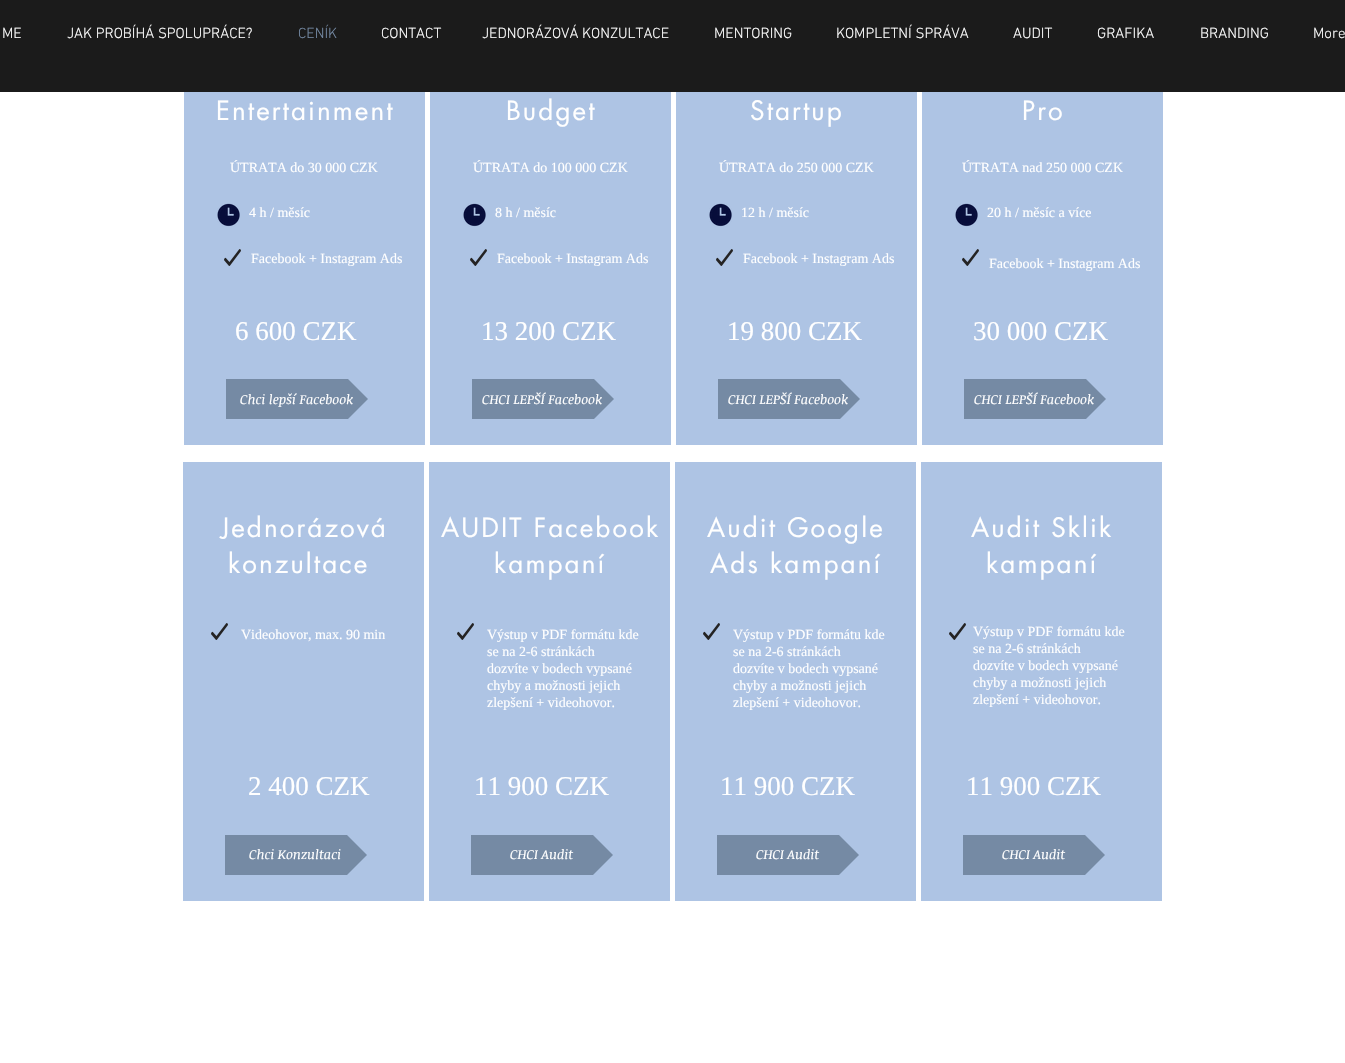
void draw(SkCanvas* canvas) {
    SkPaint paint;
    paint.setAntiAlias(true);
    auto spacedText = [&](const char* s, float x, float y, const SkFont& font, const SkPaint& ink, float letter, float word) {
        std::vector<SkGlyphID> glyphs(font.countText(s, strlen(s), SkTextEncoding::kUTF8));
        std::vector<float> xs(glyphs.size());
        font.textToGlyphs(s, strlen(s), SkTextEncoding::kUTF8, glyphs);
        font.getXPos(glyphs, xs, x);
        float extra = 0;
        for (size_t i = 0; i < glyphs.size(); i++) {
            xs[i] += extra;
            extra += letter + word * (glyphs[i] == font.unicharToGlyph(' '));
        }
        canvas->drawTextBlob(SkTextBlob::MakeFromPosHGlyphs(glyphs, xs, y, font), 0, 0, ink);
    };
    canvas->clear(0xFFFFFFFF);
    paint.setColor(0xFF1B1B1B);
    canvas->drawRect(SkRect::MakeXYWH(0, 0, 1345, 92), paint);
    SkFont font1(fontMgr->matchFamilyStyle("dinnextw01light", SkFontStyle(300, SkFontStyle::kNormal_Width, SkFontStyle::kUpright_Slant)), 15);
    font1.setSubpixel(true);
    paint.setColor(0xFFFFFFFF);
    canvas->drawString("ME", 2, 38, font1, paint);
    canvas->drawString("JAK PROBÍHÁ SPOLUPRÁCE?", 67, 38, font1, paint);
    paint.setColor(0xFF758AA4);
    canvas->drawString("CENÍK", 298, 38, font1, paint);
    paint.setColor(0xFFFFFFFF);
    canvas->drawString("CONTACT", 381, 38, font1, paint);
    canvas->drawString("JEDNORÁZOVÁ KONZULTACE", 482, 38, font1, paint);
    canvas->drawString("MENTORING", 714, 38, font1, paint);
    canvas->drawString("KOMPLETNÍ SPRÁVA", 836, 38, font1, paint);
    canvas->drawString("AUDIT", 1013, 38, font1, paint);
    canvas->drawString("GRAFIKA", 1097, 38, font1, paint);
    canvas->drawString("BRANDING", 1200, 38, font1, paint);
    canvas->drawString("More", 1313, 38, font1, paint);
    paint.setColor(0xFFAEC4E4);
    canvas->drawRect(SkRect::MakeXYWH(184, 92, 241, 353), paint);
    SkFont font2(fontMgr->matchFamilyStyle("futura", SkFontStyle::Normal()), 26);
    font2.setSubpixel(true);
    paint.setColor(0xFFFFFFFF);
    spacedText("Entertainment", 216, 120, font2, paint, 2.1f, 0);
    SkFont font3(fontMgr->matchFamilyStyle("Liberation Serif", SkFontStyle::Normal()), 14);
    font3.setSubpixel(true);
    canvas->drawString("ÚTRATA do 30 000 CZK", 230, 172, font3, paint);
    canvas->drawImageRect(SkImages::DeferredFromEncodedData(SkData::MakeFromFileName("img1.png")), SkRect::MakeXYWH(217, 203, 23, 24), SkSamplingOptions());
    canvas->drawString("4 h / měsíc", 249, 217, font3, paint);
    canvas->drawImageRect(SkImages::DeferredFromEncodedData(SkData::MakeFromFileName("img2.png")), SkRect::MakeXYWH(224, 249, 17, 17), SkSamplingOptions());
    SkFont font4(fontMgr->matchFamilyStyle("Liberation Serif", SkFontStyle::Normal()), 27);
    font4.setSubpixel(true);
    canvas->drawString("6 600 CZK", 235, 340, font4, paint);
    paint.setColor(0xFF758AA4);
    canvas->drawRect(SkRect::MakeXYWH(226, 379, 92, 40), paint);
    canvas->save();
    canvas->clipRect(SkRect::MakeXYWH(226, 379, 142, 40));
    canvas->drawPath(SkPathBuilder().moveTo(368, 399).lineTo(318, 399).lineTo(318, 349).close().moveTo(318, 399).lineTo(368, 399).lineTo(318, 449).close().detach(), paint);
    canvas->restore();
    SkFont font5(fontMgr->matchFamilyStyle("Noticia Text", SkFontStyle::Italic()), 13);
    font5.setSubpixel(true);
    paint.setColor(0xFFFFFFFF);
    canvas->drawString("Chci lepší Facebook", 240, 404, font5, paint);
    paint.setColor(0xFFAEC4E4);
    canvas->drawRect(SkRect::MakeXYWH(430, 92, 241, 353), paint);
    paint.setColor(0xFFFFFFFF);
    spacedText("Budget", 506, 120, font2, paint, 2.1f, 0);
    canvas->drawString("ÚTRATA do 100 000 CZK", 473, 172, font3, paint);
    canvas->drawImageRect(SkImages::DeferredFromEncodedData(SkData::MakeFromFileName("img1.png")), SkRect::MakeXYWH(463, 203, 23, 24), SkSamplingOptions());
    canvas->drawString("8 h / měsíc", 495, 217, font3, paint);
    canvas->drawImageRect(SkImages::DeferredFromEncodedData(SkData::MakeFromFileName("img2.png")), SkRect::MakeXYWH(470, 249, 17, 17), SkSamplingOptions());
    canvas->drawString("13 200 CZK", 481, 340, font4, paint);
    paint.setColor(0xFF758AA4);
    canvas->drawRect(SkRect::MakeXYWH(472, 379, 92, 40), paint);
    canvas->save();
    canvas->clipRect(SkRect::MakeXYWH(472, 379, 142, 40));
    canvas->drawPath(SkPathBuilder().moveTo(614, 399).lineTo(564, 399).lineTo(564, 349).close().moveTo(564, 399).lineTo(614, 399).lineTo(564, 449).close().detach(), paint);
    canvas->restore();
    paint.setColor(0xFFFFFFFF);
    canvas->drawString("CHCI LEPŠÍ Facebook", 482, 404, font5, paint);
    paint.setColor(0xFFAEC4E4);
    canvas->drawRect(SkRect::MakeXYWH(676, 92, 241, 353), paint);
    paint.setColor(0xFFFFFFFF);
    spacedText("Startup", 750, 120, font2, paint, 2.1f, 0);
    canvas->drawString("ÚTRATA do 250 000 CZK", 719, 172, font3, paint);
    canvas->drawImageRect(SkImages::DeferredFromEncodedData(SkData::MakeFromFileName("img1.png")), SkRect::MakeXYWH(709, 203, 23, 24), SkSamplingOptions());
    canvas->drawString("12 h / měsíc", 741, 217, font3, paint);
    canvas->drawImageRect(SkImages::DeferredFromEncodedData(SkData::MakeFromFileName("img2.png")), SkRect::MakeXYWH(716, 249, 17, 17), SkSamplingOptions());
    canvas->drawString("19 800 CZK", 727, 340, font4, paint);
    paint.setColor(0xFF758AA4);
    canvas->drawRect(SkRect::MakeXYWH(718, 379, 92, 40), paint);
    canvas->save();
    canvas->clipRect(SkRect::MakeXYWH(718, 379, 142, 40));
    canvas->drawPath(SkPathBuilder().moveTo(860, 399).lineTo(810, 399).lineTo(810, 349).close().moveTo(810, 399).lineTo(860, 399).lineTo(810, 449).close().detach(), paint);
    canvas->restore();
    paint.setColor(0xFFFFFFFF);
    canvas->drawString("CHCI LEPŠÍ Facebook", 728, 404, font5, paint);
    paint.setColor(0xFFAEC4E4);
    canvas->drawRect(SkRect::MakeXYWH(922, 92, 241, 353), paint);
    paint.setColor(0xFFFFFFFF);
    spacedText("Pro", 1022, 120, font2, paint, 2.1f, 0);
    canvas->drawString("ÚTRATA nad 250 000 CZK", 962, 172, font3, paint);
    canvas->drawImageRect(SkImages::DeferredFromEncodedData(SkData::MakeFromFileName("img1.png")), SkRect::MakeXYWH(955, 203, 23, 24), SkSamplingOptions());
    canvas->drawString("20 h / měsíc a více", 987, 217, font3, paint);
    canvas->drawImageRect(SkImages::DeferredFromEncodedData(SkData::MakeFromFileName("img2.png")), SkRect::MakeXYWH(962, 249, 17, 17), SkSamplingOptions());
    canvas->drawString("30 000 CZK", 973, 340, font4, paint);
    paint.setColor(0xFF758AA4);
    canvas->drawRect(SkRect::MakeXYWH(964, 379, 92, 40), paint);
    canvas->save();
    canvas->clipRect(SkRect::MakeXYWH(964, 379, 142, 40));
    canvas->drawPath(SkPathBuilder().moveTo(1106, 399).lineTo(1056, 399).lineTo(1056, 349).close().moveTo(1056, 399).lineTo(1106, 399).lineTo(1056, 449).close().detach(), paint);
    canvas->restore();
    paint.setColor(0xFFFFFFFF);
    canvas->drawString("CHCI LEPŠÍ Facebook", 974, 404, font5, paint);
    canvas->drawString("Facebook + Instagram Ads", 251, 263, font3, paint);
    canvas->drawString("Facebook + Instagram Ads", 497, 263, font3, paint);
    canvas->drawString("Facebook + Instagram Ads", 743, 263, font3, paint);
    canvas->drawString("Facebook + Instagram Ads", 989, 268, font3, paint);
    paint.setColor(0xFFAEC4E4);
    canvas->drawRect(SkRect::MakeXYWH(183, 462, 241, 439), paint);
    paint.setColor(0xFFFFFFFF);
    spacedText("Jednorázová", 221, 537, font2, paint, 2.1f, 0);
    spacedText("konzultace", 228, 573, font2, paint, 2.1f, 0);
    canvas->drawImageRect(SkImages::DeferredFromEncodedData(SkData::MakeFromFileName("img2.png")), SkRect::MakeXYWH(211, 623, 17, 17), SkSamplingOptions());
    canvas->drawString("2 400 CZK", 248, 795, font4, paint);
    paint.setColor(0xFF758AA4);
    canvas->drawRect(SkRect::MakeXYWH(225, 835, 92, 40), paint);
    canvas->save();
    canvas->clipRect(SkRect::MakeXYWH(225, 835, 142, 40));
    canvas->drawPath(SkPathBuilder().moveTo(367, 855).lineTo(317, 855).lineTo(317, 805).close().moveTo(317, 855).lineTo(367, 855).lineTo(317, 905).close().detach(), paint);
    canvas->restore();
    paint.setColor(0xFFFFFFFF);
    canvas->drawString("Chci Konzultaci", 249, 859, font5, paint);
    paint.setColor(0xFFAEC4E4);
    canvas->drawRect(SkRect::MakeXYWH(429, 462, 241, 439), paint);
    paint.setColor(0xFFFFFFFF);
    spacedText("AUDIT Facebook", 441, 537, font2, paint, 2.1f, 0);
    spacedText("kampaní", 494, 573, font2, paint, 2.1f, 0);
    canvas->drawImageRect(SkImages::DeferredFromEncodedData(SkData::MakeFromFileName("img2.png")), SkRect::MakeXYWH(457, 623, 17, 17), SkSamplingOptions());
    canvas->drawString("11 900 CZK", 474, 795, font4, paint);
    paint.setColor(0xFF758AA4);
    canvas->drawRect(SkRect::MakeXYWH(471, 835, 92, 40), paint);
    canvas->save();
    canvas->clipRect(SkRect::MakeXYWH(471, 835, 142, 40));
    canvas->drawPath(SkPathBuilder().moveTo(613, 855).lineTo(563, 855).lineTo(563, 805).close().moveTo(563, 855).lineTo(613, 855).lineTo(563, 905).close().detach(), paint);
    canvas->restore();
    paint.setColor(0xFFFFFFFF);
    canvas->drawString("CHCI Audit", 510, 859, font5, paint);
    paint.setColor(0xFFAEC4E4);
    canvas->drawRect(SkRect::MakeXYWH(675, 462, 241, 439), paint);
    paint.setColor(0xFFFFFFFF);
    spacedText("Audit Google", 707, 537, font2, paint, 2.1f, 0);
    spacedText("Ads kampaní", 710, 573, font2, paint, 2.1f, 0);
    canvas->drawImageRect(SkImages::DeferredFromEncodedData(SkData::MakeFromFileName("img2.png")), SkRect::MakeXYWH(703, 623, 17, 17), SkSamplingOptions());
    canvas->drawString("11 900 CZK", 720, 795, font4, paint);
    paint.setColor(0xFF758AA4);
    canvas->drawRect(SkRect::MakeXYWH(717, 835, 92, 40), paint);
    canvas->save();
    canvas->clipRect(SkRect::MakeXYWH(717, 835, 142, 40));
    canvas->drawPath(SkPathBuilder().moveTo(859, 855).lineTo(809, 855).lineTo(809, 805).close().moveTo(809, 855).lineTo(859, 855).lineTo(809, 905).close().detach(), paint);
    canvas->restore();
    paint.setColor(0xFFFFFFFF);
    canvas->drawString("CHCI Audit", 756, 859, font5, paint);
    paint.setColor(0xFFAEC4E4);
    canvas->drawRect(SkRect::MakeXYWH(921, 462, 241, 439), paint);
    paint.setColor(0xFFFFFFFF);
    spacedText("Audit Sklik", 971, 537, font2, paint, 2.1f, 0);
    spacedText("kampaní", 986, 573, font2, paint, 2.1f, 0);
    canvas->drawImageRect(SkImages::DeferredFromEncodedData(SkData::MakeFromFileName("img2.png")), SkRect::MakeXYWH(949, 623, 17, 17), SkSamplingOptions());
    canvas->drawString("11 900 CZK", 966, 795, font4, paint);
    paint.setColor(0xFF758AA4);
    canvas->drawRect(SkRect::MakeXYWH(963, 835, 92, 40), paint);
    canvas->save();
    canvas->clipRect(SkRect::MakeXYWH(963, 835, 142, 40));
    canvas->drawPath(SkPathBuilder().moveTo(1105, 855).lineTo(1055, 855).lineTo(1055, 805).close().moveTo(1055, 855).lineTo(1105, 855).lineTo(1055, 905).close().detach(), paint);
    canvas->restore();
    paint.setColor(0xFFFFFFFF);
    canvas->drawString("CHCI Audit", 1002, 859, font5, paint);
    canvas->drawString("Videohovor, max. 90 min", 241, 639, font3, paint);
    canvas->drawString("Výstup v PDF formátu kde", 487, 639, font3, paint);
    canvas->drawString("se na 2-6 stránkách", 487, 656, font3, paint);
    canvas->drawString("dozvíte v bodech vypsané", 487, 673, font3, paint);
    canvas->drawString("chyby a možnosti jejich", 487, 690, font3, paint);
    canvas->drawString("zlepšení + videohovor.", 487, 707, font3, paint);
    canvas->drawString("Výstup v PDF formátu kde", 733, 639, font3, paint);
    canvas->drawString("se na 2-6 stránkách", 733, 656, font3, paint);
    canvas->drawString("dozvíte v bodech vypsané", 733, 673, font3, paint);
    canvas->drawString("chyby a možnosti jejich", 733, 690, font3, paint);
    canvas->drawString("zlepšení + videohovor.", 733, 707, font3, paint);
    canvas->drawString("Výstup v PDF formátu kde", 973, 636, font3, paint);
    canvas->drawString("se na 2-6 stránkách", 973, 653, font3, paint);
    canvas->drawString("dozvíte v bodech vypsané", 973, 670, font3, paint);
    canvas->drawString("chyby a možnosti jejich", 973, 687, font3, paint);
    canvas->drawString("zlepšení + videohovor.", 973, 704, font3, paint);
}
